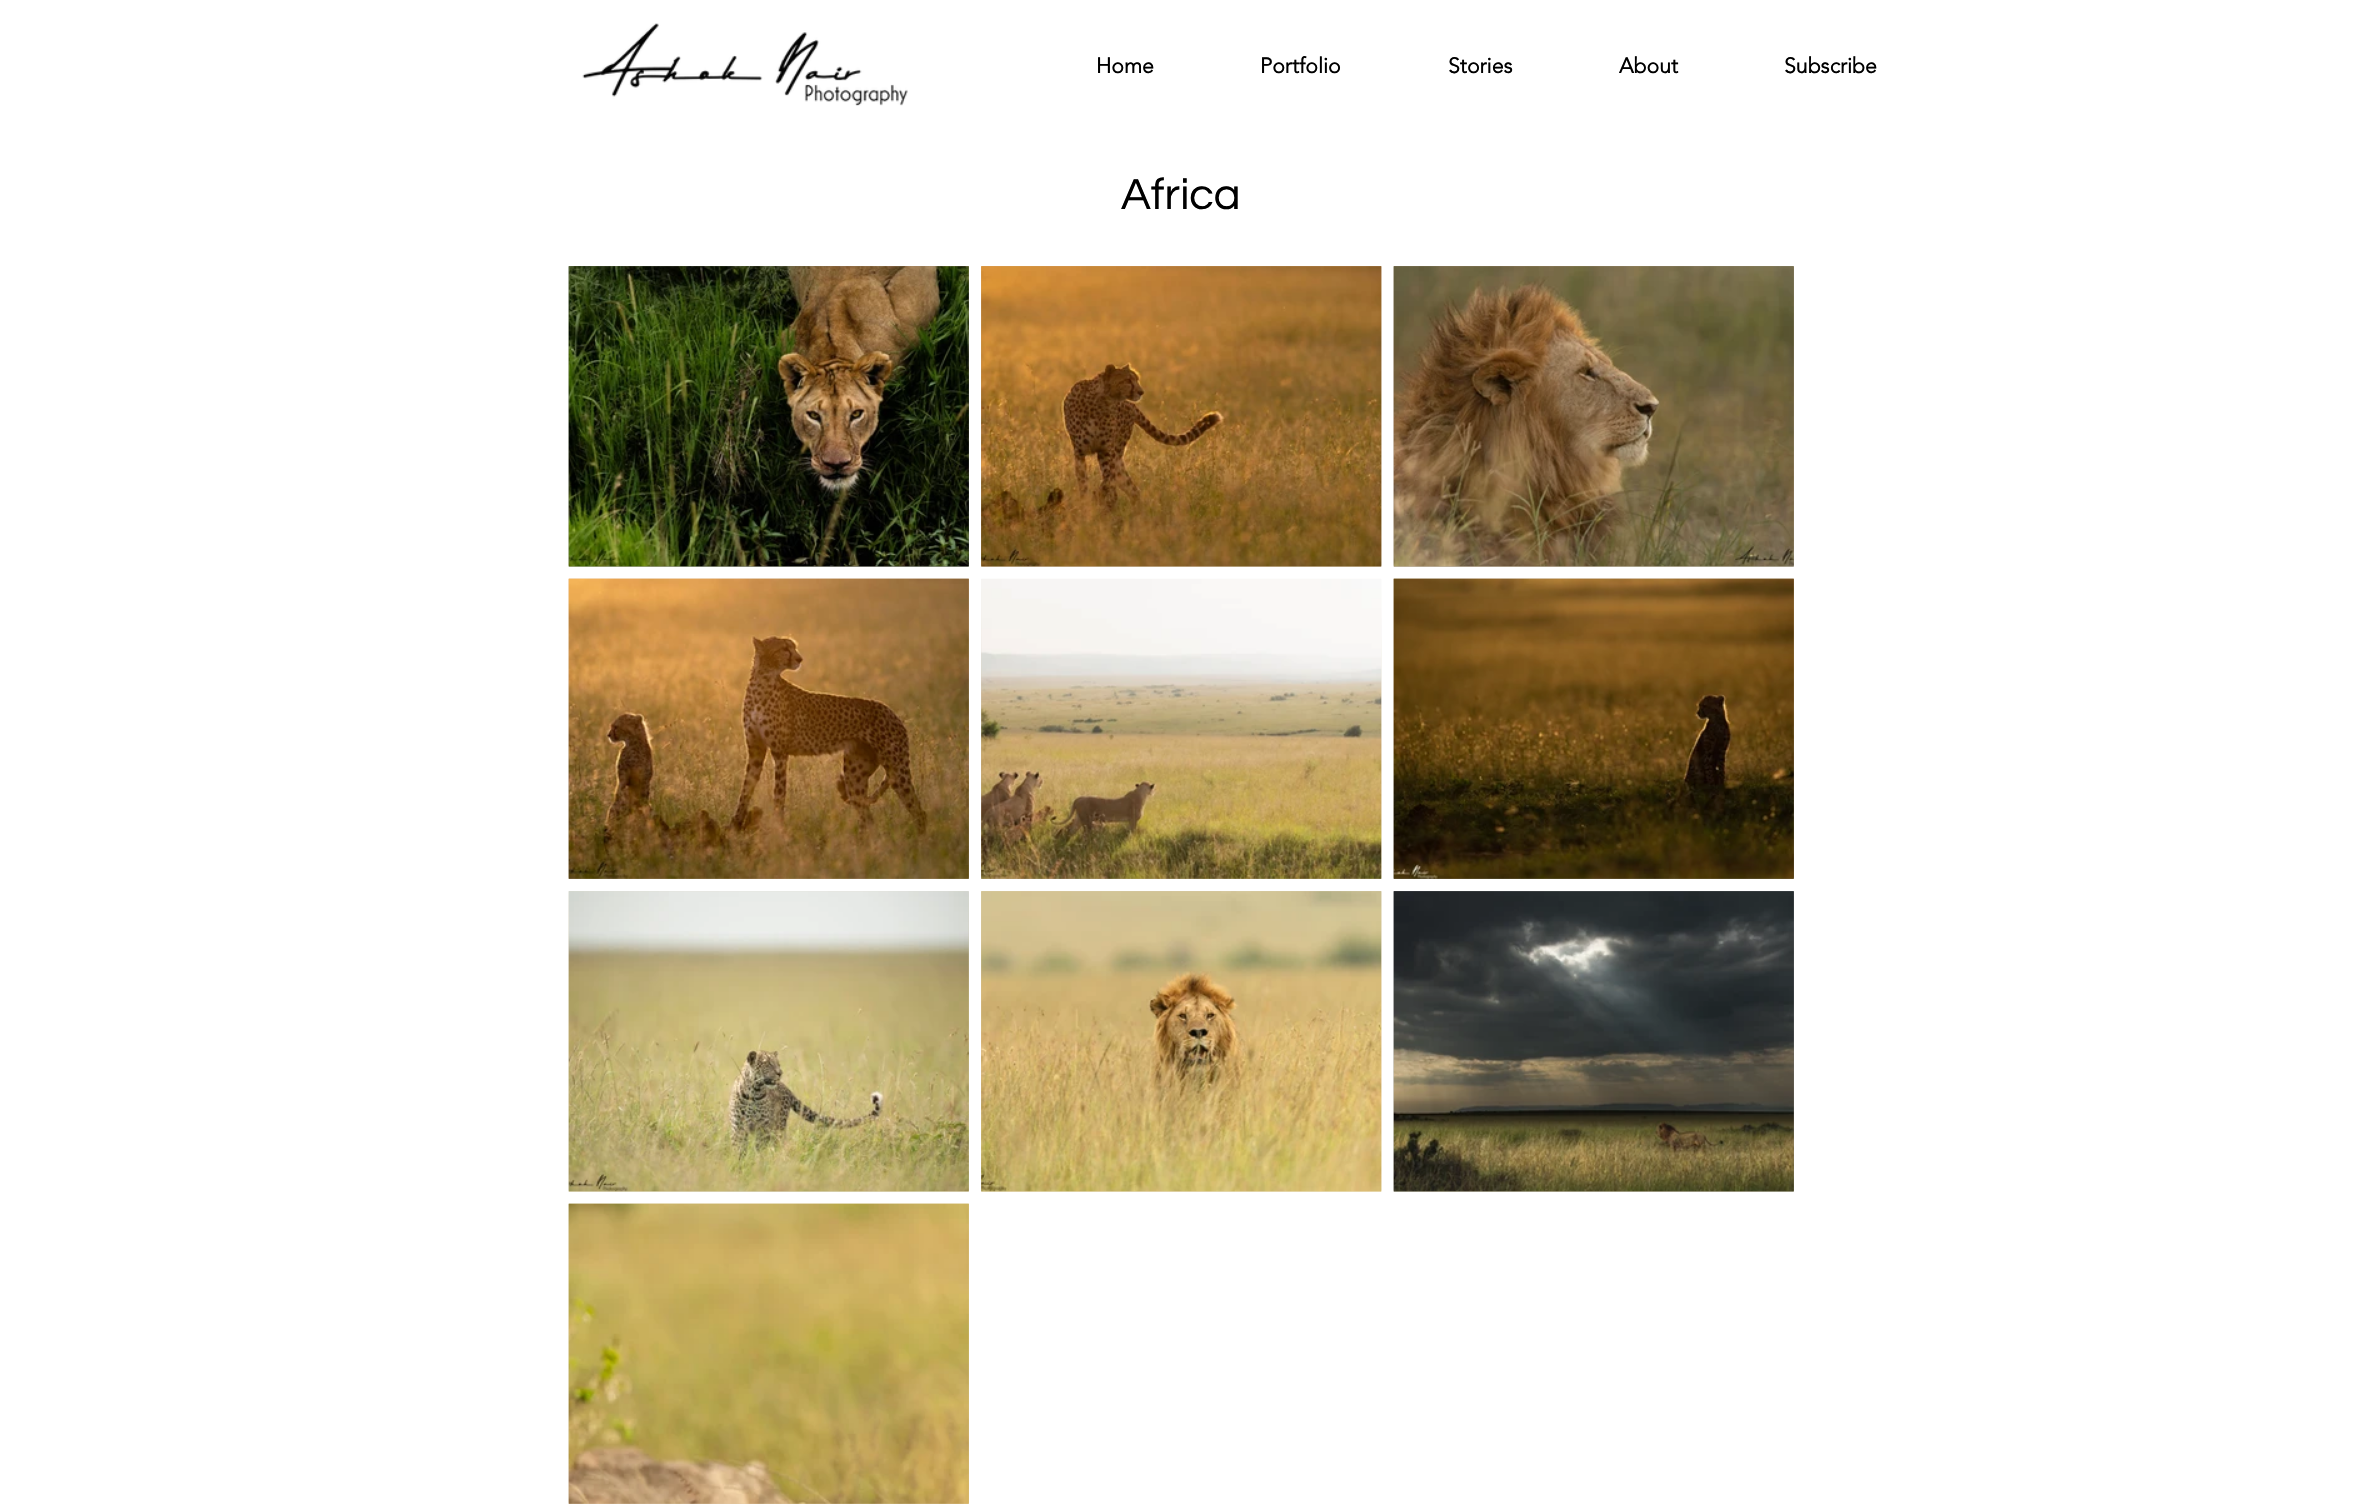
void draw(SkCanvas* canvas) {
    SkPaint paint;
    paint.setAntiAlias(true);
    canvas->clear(0xFFFFFFFF);
    canvas->drawImageRect(SkImages::DeferredFromEncodedData(SkData::MakeFromFileName("img1.png")), SkRect::MakeXYWH(582, 23, 326, 83), SkSamplingOptions());
    SkFont font1(fontMgr->matchFamilyStyle("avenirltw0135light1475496", SkFontStyle::Bold()), 21.25f);
    font1.setSubpixel(true);
    paint.setColor(0xFF000000);
    canvas->drawString("Home", 1096, 73, font1, paint);
    canvas->drawString("Portfolio", 1260, 73, font1, paint);
    canvas->drawString("Stories", 1448, 73, font1, paint);
    canvas->drawString("About", 1619, 73, font1, paint);
    canvas->drawString("Subscribe", 1784, 73, font1, paint);
    SkFont font2(fontMgr->matchFamilyStyle("Questrial", SkFontStyle::Normal()), 45);
    font2.setSubpixel(true);
    canvas->drawString("Africa", 1121, 209, font2, paint);
    canvas->drawImageRect(SkImages::DeferredFromEncodedData(SkData::MakeFromFileName("img2.png")), SkRect::MakeXYWH(568, 266, 401, 301), SkSamplingOptions());
    canvas->drawImageRect(SkImages::DeferredFromEncodedData(SkData::MakeFromFileName("img3.png")), SkRect::MakeXYWH(568, 266, 401, 301), SkSamplingOptions());
    canvas->drawImageRect(SkImages::DeferredFromEncodedData(SkData::MakeFromFileName("img4.png")), SkRect::MakeXYWH(981, 266, 401, 301), SkSamplingOptions());
    canvas->drawImageRect(SkImages::DeferredFromEncodedData(SkData::MakeFromFileName("img5.png")), SkRect::MakeXYWH(981, 266, 401, 301), SkSamplingOptions());
    canvas->drawImageRect(SkImages::DeferredFromEncodedData(SkData::MakeFromFileName("img6.png")), SkRect::MakeXYWH(1393, 266, 401, 301), SkSamplingOptions());
    canvas->drawImageRect(SkImages::DeferredFromEncodedData(SkData::MakeFromFileName("img7.png")), SkRect::MakeXYWH(1393, 266, 401, 301), SkSamplingOptions());
    canvas->drawImageRect(SkImages::DeferredFromEncodedData(SkData::MakeFromFileName("img8.png")), SkRect::MakeXYWH(568, 578, 401, 301), SkSamplingOptions());
    canvas->drawImageRect(SkImages::DeferredFromEncodedData(SkData::MakeFromFileName("img9.png")), SkRect::MakeXYWH(568, 578, 401, 301), SkSamplingOptions());
    canvas->drawImageRect(SkImages::DeferredFromEncodedData(SkData::MakeFromFileName("img10.png")), SkRect::MakeXYWH(981, 578, 401, 301), SkSamplingOptions());
    canvas->drawImageRect(SkImages::DeferredFromEncodedData(SkData::MakeFromFileName("img11.png")), SkRect::MakeXYWH(981, 579, 401, 300), SkSamplingOptions());
    canvas->drawImageRect(SkImages::DeferredFromEncodedData(SkData::MakeFromFileName("img12.png")), SkRect::MakeXYWH(1393, 578, 401, 301), SkSamplingOptions());
    canvas->drawImageRect(SkImages::DeferredFromEncodedData(SkData::MakeFromFileName("img13.png")), SkRect::MakeXYWH(1393, 578, 401, 301), SkSamplingOptions());
    canvas->drawImageRect(SkImages::DeferredFromEncodedData(SkData::MakeFromFileName("img14.png")), SkRect::MakeXYWH(568, 891, 401, 301), SkSamplingOptions());
    canvas->drawImageRect(SkImages::DeferredFromEncodedData(SkData::MakeFromFileName("img15.png")), SkRect::MakeXYWH(568, 891, 401, 301), SkSamplingOptions());
    canvas->drawImageRect(SkImages::DeferredFromEncodedData(SkData::MakeFromFileName("img16.png")), SkRect::MakeXYWH(981, 891, 401, 301), SkSamplingOptions());
    canvas->drawImageRect(SkImages::DeferredFromEncodedData(SkData::MakeFromFileName("img17.png")), SkRect::MakeXYWH(981, 891, 401, 301), SkSamplingOptions());
    canvas->drawImageRect(SkImages::DeferredFromEncodedData(SkData::MakeFromFileName("img18.png")), SkRect::MakeXYWH(1393, 891, 401, 301), SkSamplingOptions());
    canvas->drawImageRect(SkImages::DeferredFromEncodedData(SkData::MakeFromFileName("img19.png")), SkRect::MakeXYWH(1393, 891, 401, 301), SkSamplingOptions());
    canvas->drawImageRect(SkImages::DeferredFromEncodedData(SkData::MakeFromFileName("img20.png")), SkRect::MakeXYWH(568, 1203, 401, 301), SkSamplingOptions());
    canvas->drawImageRect(SkImages::DeferredFromEncodedData(SkData::MakeFromFileName("img21.png")), SkRect::MakeXYWH(568, 1203, 401, 301), SkSamplingOptions());
}
